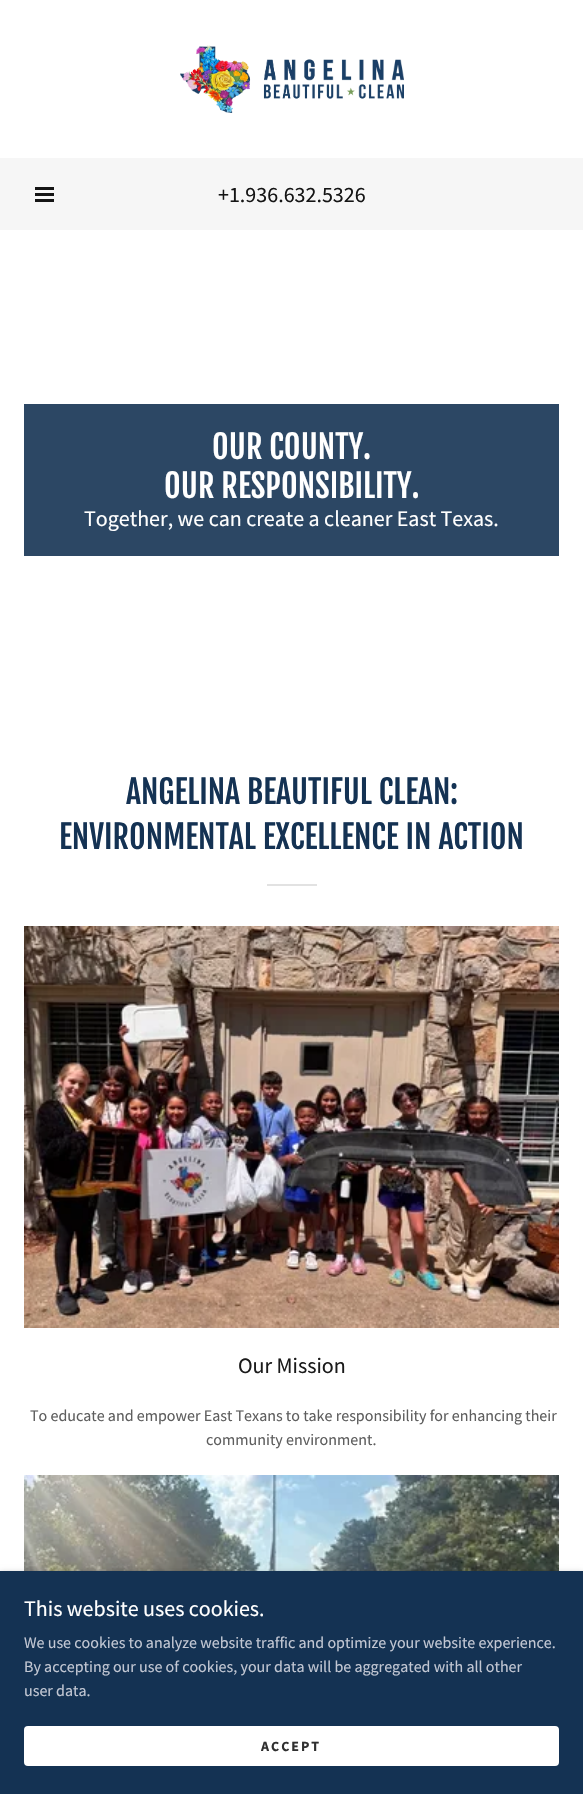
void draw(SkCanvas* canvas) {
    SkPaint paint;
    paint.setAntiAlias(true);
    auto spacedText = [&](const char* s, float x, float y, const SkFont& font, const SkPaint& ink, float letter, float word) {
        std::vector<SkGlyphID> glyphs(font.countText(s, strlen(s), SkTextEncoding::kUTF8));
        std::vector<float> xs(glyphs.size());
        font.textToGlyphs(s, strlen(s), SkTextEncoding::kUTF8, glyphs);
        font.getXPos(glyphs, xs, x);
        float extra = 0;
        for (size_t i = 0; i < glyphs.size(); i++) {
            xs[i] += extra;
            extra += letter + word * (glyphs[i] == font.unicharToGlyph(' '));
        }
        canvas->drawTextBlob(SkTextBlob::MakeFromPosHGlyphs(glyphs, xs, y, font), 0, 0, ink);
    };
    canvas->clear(0xFFFFFFFF);
    canvas->drawImageRect(SkImages::DeferredFromEncodedData(SkData::MakeFromFileName("img1.png")), SkRect::MakeXYWH(180, 45, 224, 68), SkSamplingOptions());
    paint.setColor(0xFFF6F6F6);
    canvas->drawRect(SkRect::MakeXYWH(0, 158, 583, 72), paint);
    paint.setColor(0xFF151515);
    canvas->drawRect(SkRect::MakeXYWH(35, 187, 19, 3), paint);
    canvas->drawRect(SkRect::MakeXYWH(35, 193, 19, 3), paint);
    canvas->drawRect(SkRect::MakeXYWH(35, 199, 19, 3), paint);
    SkFont font1(fontMgr->matchFamilyStyle("Source Sans Pro", SkFontStyle::Normal()), 22);
    font1.setSubpixel(true);
    canvas->drawString("+1.936.632.5326", 218, 202, font1, paint);
    paint.setColor(0xFF2C4764);
    canvas->drawRect(SkRect::MakeXYWH(24, 404, 535, 152), paint);
    SkFont font2(fontMgr->matchFamilyStyle("Fjalla One", SkFontStyle::Normal()), 32);
    font2.setSubpixel(true);
    paint.setColor(0xFFFFFFFF);
    canvas->drawString("OUR COUNTY.", 212, 459, font2, paint);
    canvas->drawString("OUR RESPONSIBILITY.", 164, 498, font2, paint);
    canvas->drawString("Together, we can create a cleaner East Texas.", 84, 526, font1, paint);
    paint.setColor(0xFF143253);
    canvas->drawString("ANGELINA BEAUTIFUL CLEAN:", 126, 804, font2, paint);
    canvas->drawString("ENVIRONMENTAL EXCELLENCE IN ACTION", 59, 849, font2, paint);
    paint.setColor(0xFFE2E2E2);
    canvas->drawRect(SkRect::MakeXYWH(267, 884, 50, 2), paint);
    canvas->drawImageRect(SkImages::DeferredFromEncodedData(SkData::MakeFromFileName("img2.png")), SkRect::MakeXYWH(24, 926, 535, 402), SkSamplingOptions());
    paint.setColor(0xFF1B1B1B);
    canvas->drawString("Our Mission", 238, 1373, font1, paint);
    SkFont font3(fontMgr->matchFamilyStyle("Source Sans Pro", SkFontStyle::Normal()), 16);
    font3.setSubpixel(true);
    paint.setColor(0xFF5E5E5E);
    canvas->drawString("To educate and empower East Texans to take responsibility for enhancing their", 30, 1421, font3, paint);
    canvas->drawString("community environment.", 206, 1445, font3, paint);
    canvas->drawImageRect(SkImages::DeferredFromEncodedData(SkData::MakeFromFileName("img3.png")), SkRect::MakeXYWH(24, 1475, 535, 96), SkSamplingOptions());
    paint.setColor(0x4D000000);
    paint.setMaskFilter(SkMaskFilter::MakeBlur(kNormal_SkBlurStyle, 3));
    canvas->drawRect(SkRect::MakeXYWH(0, 1573, 583, 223), paint);
    paint.setMaskFilter(nullptr);
    paint.setColor(0xFF143253);
    canvas->drawRect(SkRect::MakeXYWH(0, 1571, 583, 223), paint);
    paint.setColor(0xFFFFFFFF);
    canvas->drawString("This website uses cookies.", 24, 1616, font1, paint);
    paint.setColor(0xFFC2C7D3);
    canvas->drawString("We use cookies to analyze website traffic and optimize your website experience.", 24, 1648, font3, paint);
    canvas->drawString("By accepting our use of cookies, your data will be aggregated with all other", 24, 1672, font3, paint);
    canvas->drawString("user data.", 24, 1696, font3, paint);
    paint.setColor(0xFFFFFFFF);
    canvas->drawRoundRect(SkRect::MakeXYWH(24, 1726, 535, 40), 4, 4, paint);
    SkFont font4(fontMgr->matchFamilyStyle("Source Sans Pro", SkFontStyle::Bold()), 14);
    font4.setSubpixel(true);
    paint.setColor(0xFF303030);
    spacedText("ACCEPT", 261, 1751, font4, paint, 2, 0);
}
